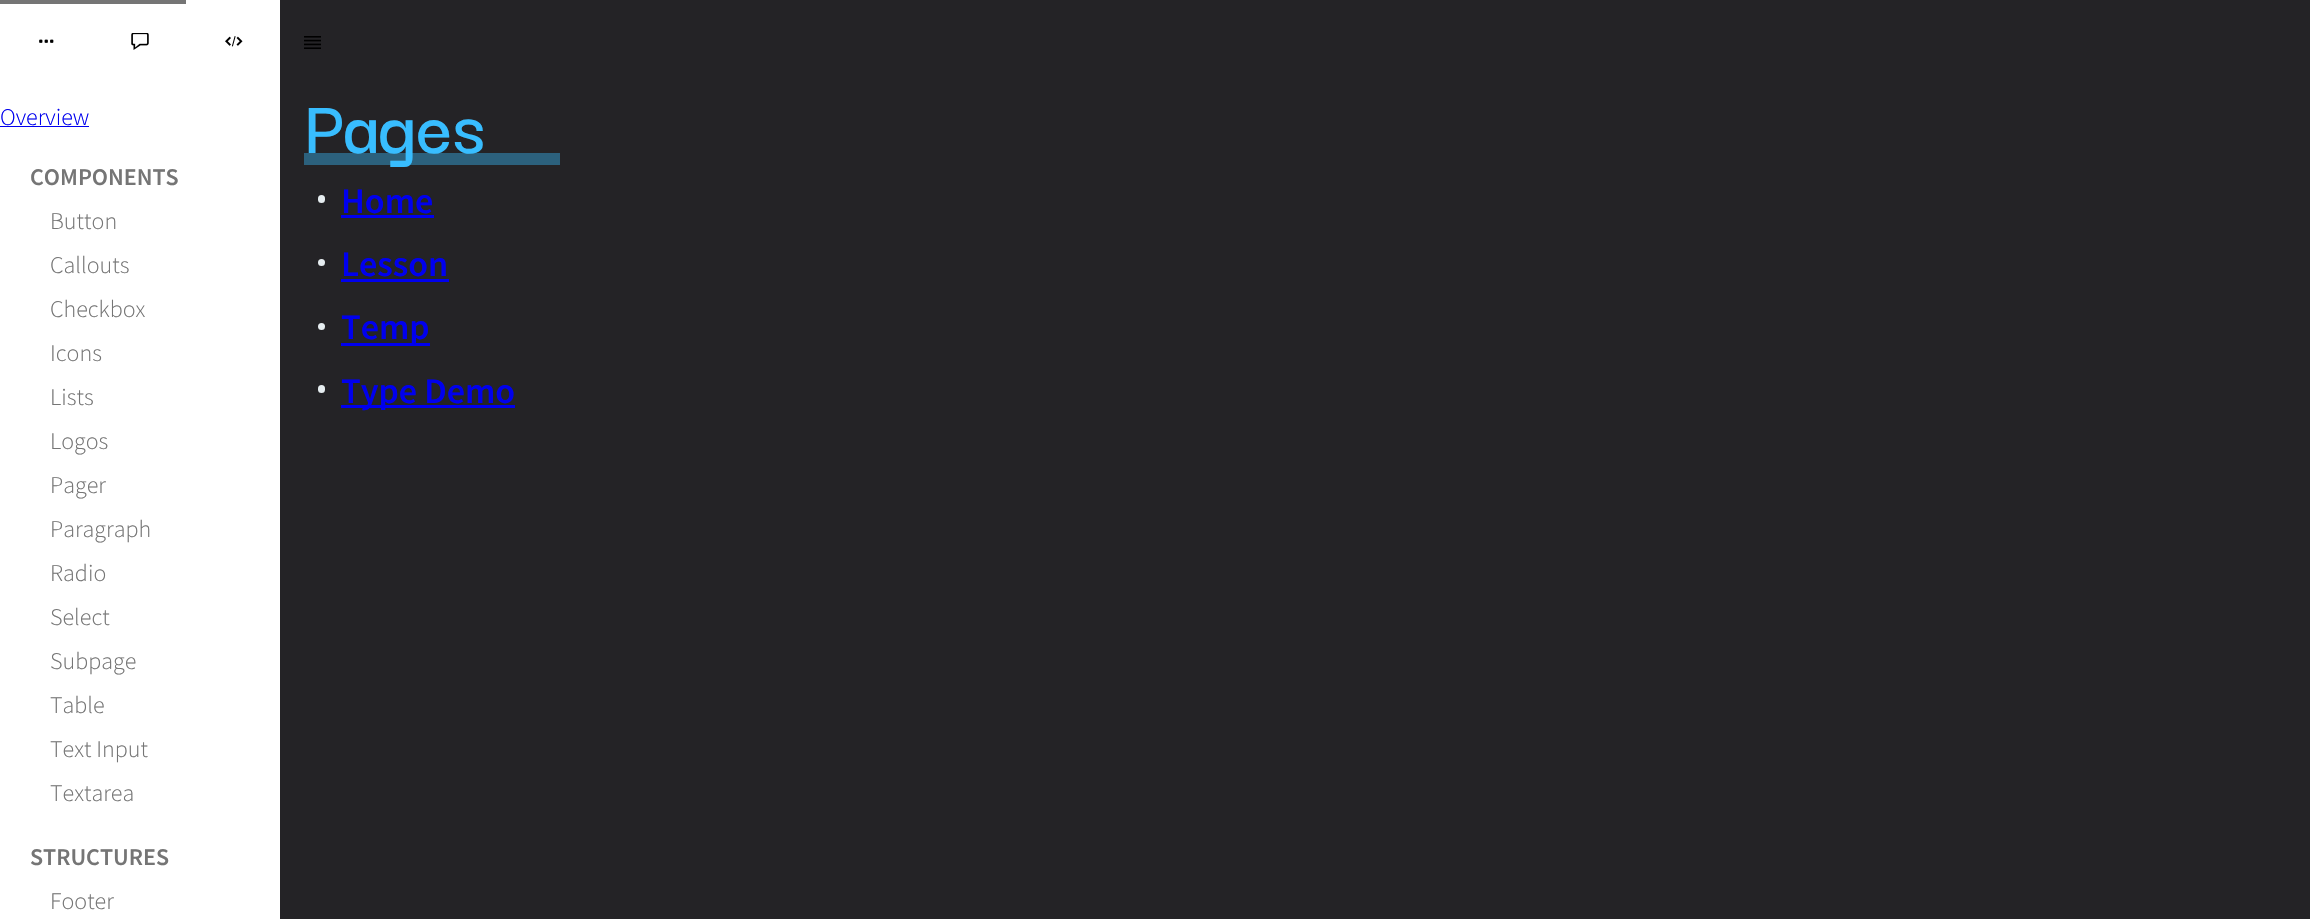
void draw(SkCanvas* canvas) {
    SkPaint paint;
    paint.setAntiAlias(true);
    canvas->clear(0xFF242326);
    paint.setColor(0xFFFFFFFF);
    canvas->drawRect(SkRect::MakeXYWH(0, 0, 280, 919), paint);
    paint.setColor(0xFF757575);
    canvas->drawRect(SkRect::MakeXYWH(0, 0, 186, 4), paint);
    canvas->drawImageRect(SkImages::DeferredFromEncodedData(SkData::MakeFromFileName("img1.png")), SkRect::MakeXYWH(39, 39, 15, 4), SkSamplingOptions());
    canvas->drawImageRect(SkImages::DeferredFromEncodedData(SkData::MakeFromFileName("img2.png")), SkRect::MakeXYWH(131, 33, 18, 17), SkSamplingOptions());
    canvas->drawImageRect(SkImages::DeferredFromEncodedData(SkData::MakeFromFileName("img3.png")), SkRect::MakeXYWH(225, 36, 18, 11), SkSamplingOptions());
    SkFont font1(fontMgr->matchFamilyStyle("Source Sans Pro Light", SkFontStyle(300, SkFontStyle::kNormal_Width, SkFontStyle::kUpright_Slant)), 24);
    font1.setSubpixel(true);
    paint.setColor(0xFF0000EE);
    canvas->drawString("Overview", 0, 125, font1, paint);
    canvas->drawRect(SkRect::MakeXYWH(0, 126, 89, 1), paint);
    SkFont font2(fontMgr->matchFamilyStyle("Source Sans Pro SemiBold", SkFontStyle(600, SkFontStyle::kNormal_Width, SkFontStyle::kUpright_Slant)), 24);
    font2.setSubpixel(true);
    paint.setColor(0xFF757575);
    canvas->drawString("COMPONENTS", 30, 185, font2, paint);
    canvas->drawString("Button", 50, 229, font1, paint);
    canvas->drawString("Callouts", 50, 273, font1, paint);
    canvas->drawString("Checkbox", 50, 317, font1, paint);
    canvas->drawString("Icons", 50, 361, font1, paint);
    canvas->drawString("Lists", 50, 405, font1, paint);
    canvas->drawString("Logos", 50, 449, font1, paint);
    canvas->drawString("Pager", 50, 493, font1, paint);
    canvas->drawString("Paragraph", 50, 537, font1, paint);
    canvas->drawString("Radio", 50, 581, font1, paint);
    canvas->drawString("Select", 50, 625, font1, paint);
    canvas->drawString("Subpage", 50, 669, font1, paint);
    canvas->drawString("Table", 50, 713, font1, paint);
    canvas->drawString("Text Input", 50, 757, font1, paint);
    canvas->drawString("Textarea", 50, 801, font1, paint);
    canvas->drawString("STRUCTURES", 30, 865, font2, paint);
    canvas->drawString("Footer", 50, 909, font1, paint);
    canvas->drawImageRect(SkImages::DeferredFromEncodedData(SkData::MakeFromFileName("img4.png")), SkRect::MakeXYWH(304, 36, 17, 13), SkSamplingOptions());
    SkFont font3(fontMgr->matchFamilyStyle("Darker Grotesque", SkFontStyle(600, SkFontStyle::kNormal_Width, SkFontStyle::kUpright_Slant)), 80);
    font3.setSubpixel(true);
    paint.setColor(0xFF38BDFF);
    canvas->drawString("Pages", 304, 153, font3, paint);
    paint.setColor(0x6638BDFF);
    canvas->drawRect(SkRect::MakeXYWH(304, 153, 256, 12), paint);
    paint.setColor(0xFFE6EDF0);
    canvas->drawRoundRect(SkRect::MakeXYWH(318, 195, 7, 8), 3.5f, 3.5f, paint);
    SkFont font4(fontMgr->matchFamilyStyle("Source Sans Pro SemiBold", SkFontStyle(600, SkFontStyle::kNormal_Width, SkFontStyle::kUpright_Slant)), 36);
    font4.setSubpixel(true);
    paint.setColor(0xFF0000EE);
    canvas->drawString("Home", 341, 213, font4, paint);
    canvas->drawRect(SkRect::MakeXYWH(341, 215, 93, 3), paint);
    paint.setColor(0xFFE6EDF0);
    canvas->drawCircle(321.5f, 262.5f, 3.5f, paint);
    paint.setColor(0xFF0000EE);
    canvas->drawString("Lesson", 341, 276, font4, paint);
    canvas->drawRect(SkRect::MakeXYWH(341, 279, 108, 3), paint);
    paint.setColor(0xFFE6EDF0);
    canvas->drawCircle(321.5f, 326.5f, 3.5f, paint);
    paint.setColor(0xFF0000EE);
    canvas->drawRect(SkRect::MakeXYWH(341, 343, 89, 3), paint);
    canvas->drawString("Temp", 341, 339, font4, paint);
    paint.setColor(0xFFE6EDF0);
    canvas->drawRoundRect(SkRect::MakeXYWH(318, 385, 7, 8), 3.5f, 3.5f, paint);
    paint.setColor(0xFF0000EE);
    canvas->drawRect(SkRect::MakeXYWH(341, 405, 174, 3), paint);
    canvas->drawString("Type Demo", 341, 403, font4, paint);
}
